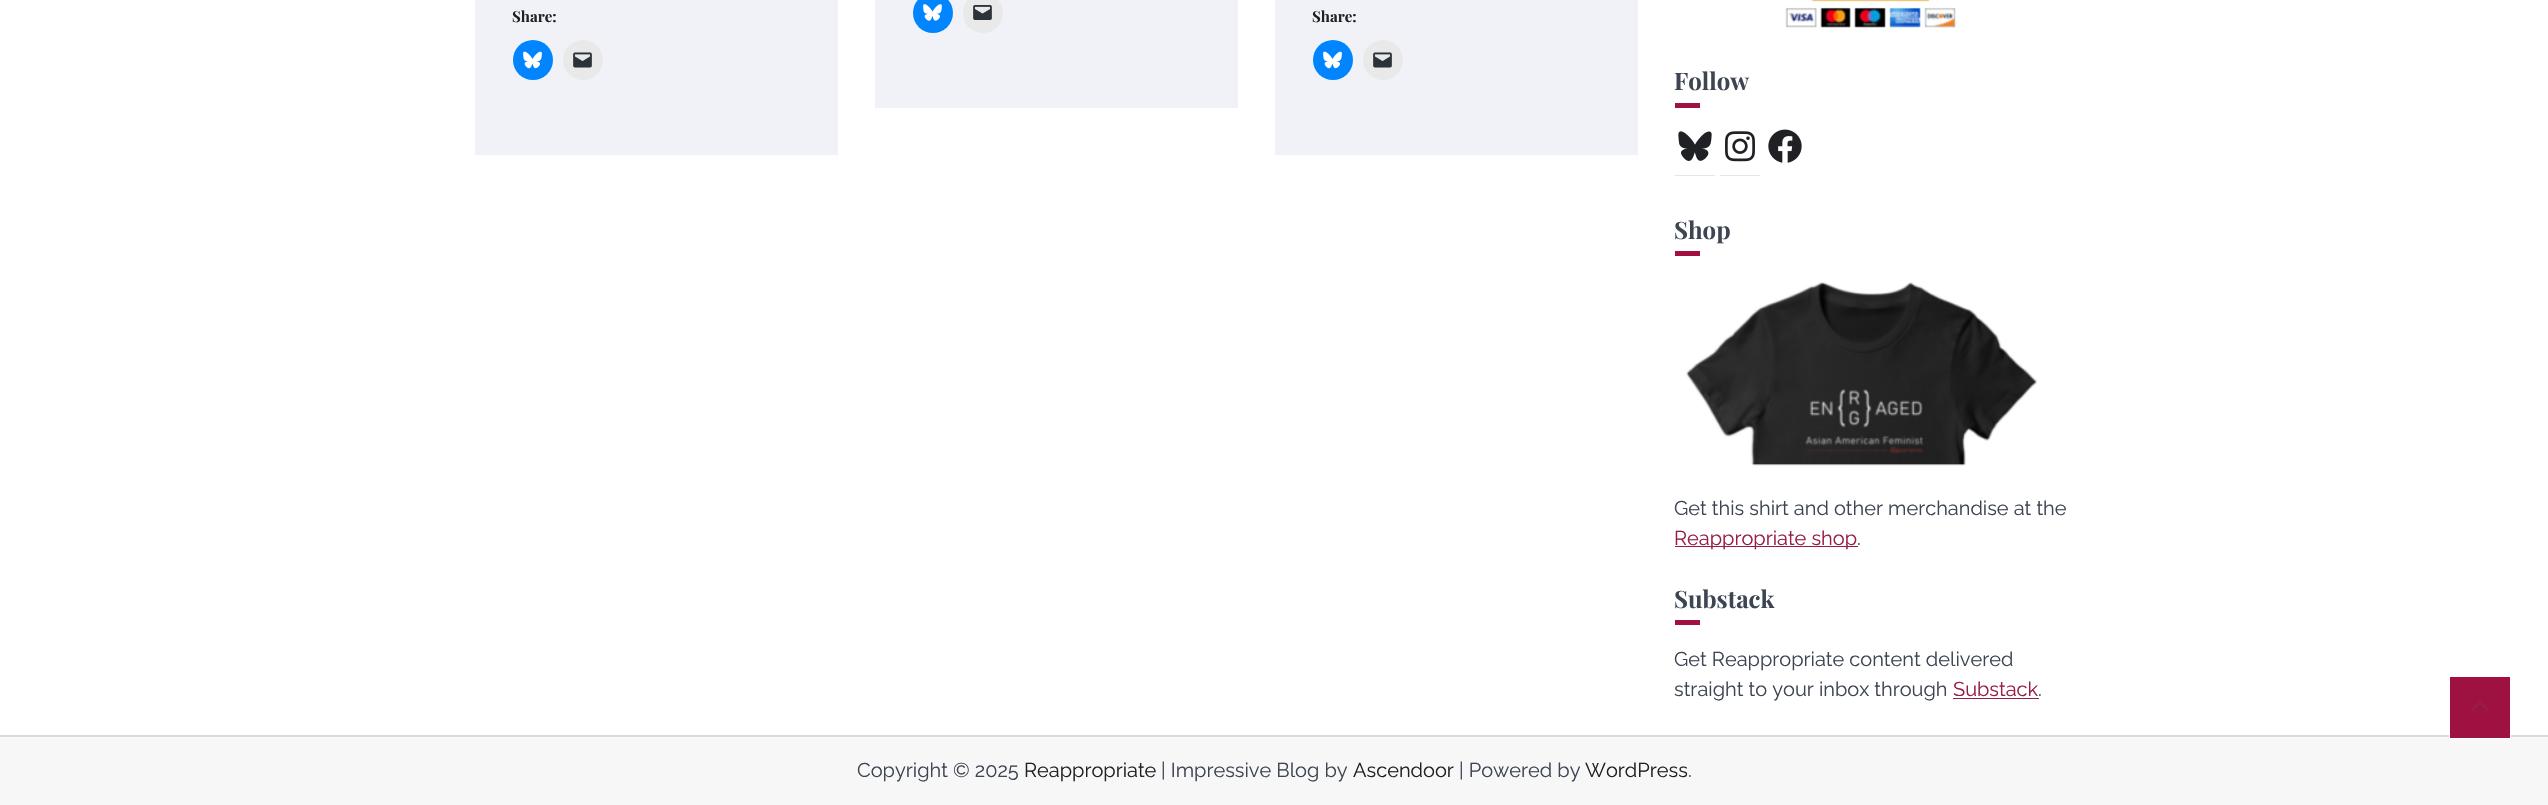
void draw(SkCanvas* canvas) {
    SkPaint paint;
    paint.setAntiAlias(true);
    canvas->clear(0xFFFFFFFF);
    paint.setColor(0xFFF0F2F7);
    canvas->drawRect(SkRect::MakeXYWH(475, 0, 363, 155), paint);
    SkFont font1(fontMgr->matchFamilyStyle("Playfair Display", SkFontStyle::Bold()), 15);
    font1.setSubpixel(true);
    paint.setColor(0xFF202124);
    canvas->drawString("Share:", 512, 22, font1, paint);
    paint.setColor(0xFF0085FF);
    canvas->drawCircle(533, 60, 20, paint);
    canvas->drawImageRect(SkImages::DeferredFromEncodedData(SkData::MakeFromFileName("img1.png")), SkRect::MakeXYWH(523, 51, 19, 18), SkSamplingOptions());
    paint.setColor(0xFFE9E9E9);
    canvas->drawCircle(583, 60, 20, paint);
    canvas->drawImageRect(SkImages::DeferredFromEncodedData(SkData::MakeFromFileName("img2.png")), SkRect::MakeXYWH(573, 52, 19, 16), SkSamplingOptions());
    paint.setColor(0xFFF0F2F7);
    canvas->drawRect(SkRect::MakeXYWH(875, 0, 363, 108), paint);
    paint.setColor(0xFF0085FF);
    canvas->drawCircle(933, 13, 20, paint);
    canvas->drawImageRect(SkImages::DeferredFromEncodedData(SkData::MakeFromFileName("img3.png")), SkRect::MakeXYWH(923, 4, 19, 17), SkSamplingOptions());
    paint.setColor(0xFFE9E9E9);
    canvas->drawCircle(983, 13, 20, paint);
    canvas->drawImageRect(SkImages::DeferredFromEncodedData(SkData::MakeFromFileName("img4.png")), SkRect::MakeXYWH(973, 5, 19, 15), SkSamplingOptions());
    paint.setColor(0xFFF0F2F7);
    canvas->drawRect(SkRect::MakeXYWH(1275, 0, 363, 155), paint);
    paint.setColor(0xFF202124);
    canvas->drawString("Share:", 1312, 22, font1, paint);
    paint.setColor(0xFF0085FF);
    canvas->drawCircle(1333, 60, 20, paint);
    canvas->drawImageRect(SkImages::DeferredFromEncodedData(SkData::MakeFromFileName("img1.png")), SkRect::MakeXYWH(1323, 51, 19, 18), SkSamplingOptions());
    paint.setColor(0xFFE9E9E9);
    canvas->drawCircle(1383, 60, 20, paint);
    canvas->drawImageRect(SkImages::DeferredFromEncodedData(SkData::MakeFromFileName("img2.png")), SkRect::MakeXYWH(1373, 52, 19, 16), SkSamplingOptions());
    canvas->drawImageRect(SkImages::DeferredFromEncodedData(SkData::MakeFromFileName("img5.png")), SkRect::MakeXYWH(1785, 0, 171, 28), SkSamplingOptions());
    SkFont font2(fontMgr->matchFamilyStyle("Playfair Display", SkFontStyle::Bold()), 24);
    font2.setSubpixel(true);
    paint.setColor(0xFF3D4452);
    canvas->drawString("Follow", 1674, 90, font2, paint);
    paint.setColor(0xFF9E1140);
    canvas->drawRect(SkRect::MakeXYWH(1675, 103, 25, 5), paint);
    paint.setColor(0xFFE6E6E6);
    canvas->drawRect(SkRect::MakeXYWH(1675, 175, 40, 1), paint);
    canvas->drawImageRect(SkImages::DeferredFromEncodedData(SkData::MakeFromFileName("img6.png")), SkRect::MakeXYWH(1678, 131, 34, 30), SkSamplingOptions());
    canvas->drawRect(SkRect::MakeXYWH(1720, 175, 40, 1), paint);
    canvas->drawImageRect(SkImages::DeferredFromEncodedData(SkData::MakeFromFileName("img7.png")), SkRect::MakeXYWH(1725, 131, 30, 31), SkSamplingOptions());
    canvas->drawImageRect(SkImages::DeferredFromEncodedData(SkData::MakeFromFileName("img8.png")), SkRect::MakeXYWH(1768, 129, 34, 34), SkSamplingOptions());
    paint.setColor(0xFF3D4452);
    canvas->drawString("Shop", 1674, 239, font2, paint);
    paint.setColor(0xFF9E1140);
    canvas->drawRect(SkRect::MakeXYWH(1675, 251, 25, 5), paint);
    canvas->drawImageRect(SkImages::DeferredFromEncodedData(SkData::MakeFromFileName("img9.png")), SkRect::MakeXYWH(1686, 281, 351, 185), SkSamplingOptions());
    SkFont font3(fontMgr->matchFamilyStyle("Raleway", SkFontStyle::Normal()), 20);
    font3.setSubpixel(true);
    paint.setColor(0xFF3D4452);
    canvas->drawString("Get this shirt and other merchandise at the", 1674, 515, font3, paint);
    paint.setColor(0xFF981D42);
    canvas->drawRect(SkRect::MakeXYWH(1675, 546, 183, 1), paint);
    canvas->drawString("Reappropriate shop", 1674, 545, font3, paint);
    paint.setColor(0xFF3D4452);
    canvas->drawString(".", 1857, 545, font3, paint);
    canvas->drawString("Substack", 1674, 608, font2, paint);
    paint.setColor(0xFF9E1140);
    canvas->drawRect(SkRect::MakeXYWH(1675, 620, 25, 5), paint);
    paint.setColor(0xFF3D4452);
    canvas->drawString("Get Reappropriate content delivered", 1674, 666, font3, paint);
    canvas->drawString("straight to your inbox through", 1674, 696, font3, paint);
    paint.setColor(0xFF981D42);
    canvas->drawString("Substack", 1953, 696, font3, paint);
    canvas->drawRect(SkRect::MakeXYWH(1953, 698, 86, 1), paint);
    paint.setColor(0xFF3D4452);
    canvas->drawString(".", 2038, 696, font3, paint);
    paint.setColor(0xFFFBFBFB);
    canvas->drawRect(SkRect::MakeXYWH(0, 737, 2548, 1), paint);
    paint.setColor(0xFFDADADB);
    canvas->drawRect(SkRect::MakeXYWH(0, 735, 2548, 2), paint);
    paint.setColor(0xFFF7F7F7);
    canvas->drawRect(SkRect::MakeXYWH(0, 738, 2548, 67), paint);
    paint.setColor(0xFF9E1140);
    canvas->drawRect(SkRect::MakeXYWH(2449.5f, 676.5f, 61, 62), paint);
    paint.setStyle(SkPaint::kStroke_Style);
    paint.setStrokeWidth(1);
    paint.setColor(0xFFFFFFFF);
    canvas->drawRect(SkRect::MakeXYWH(2449.5f, 676.5f, 61, 62), paint);
    canvas->drawImageRect(SkImages::DeferredFromEncodedData(SkData::MakeFromFileName("img10.png")), SkRect::MakeXYWH(2471, 701, 18, 10), SkSamplingOptions());
    paint.setStyle(SkPaint::kFill_Style);
    paint.setColor(0xFF3D4452);
    canvas->drawString("Copyright © 2025", 857, 777, font3, paint);
    paint.setColor(0xFF202124);
    canvas->drawString("Reappropriate", 1024, 777, font3, paint);
    paint.setColor(0xFF3D4452);
    canvas->drawString("| Impressive Blog by", 1161, 777, font3, paint);
    paint.setColor(0xFF202124);
    canvas->drawString("Ascendoor", 1353, 777, font3, paint);
    paint.setColor(0xFF3D4452);
    canvas->drawString("| Powered by", 1459, 777, font3, paint);
    paint.setColor(0xFF202124);
    canvas->drawString("WordPress", 1585, 777, font3, paint);
    paint.setColor(0xFF3D4452);
    canvas->drawString(".", 1688, 777, font3, paint);
}
